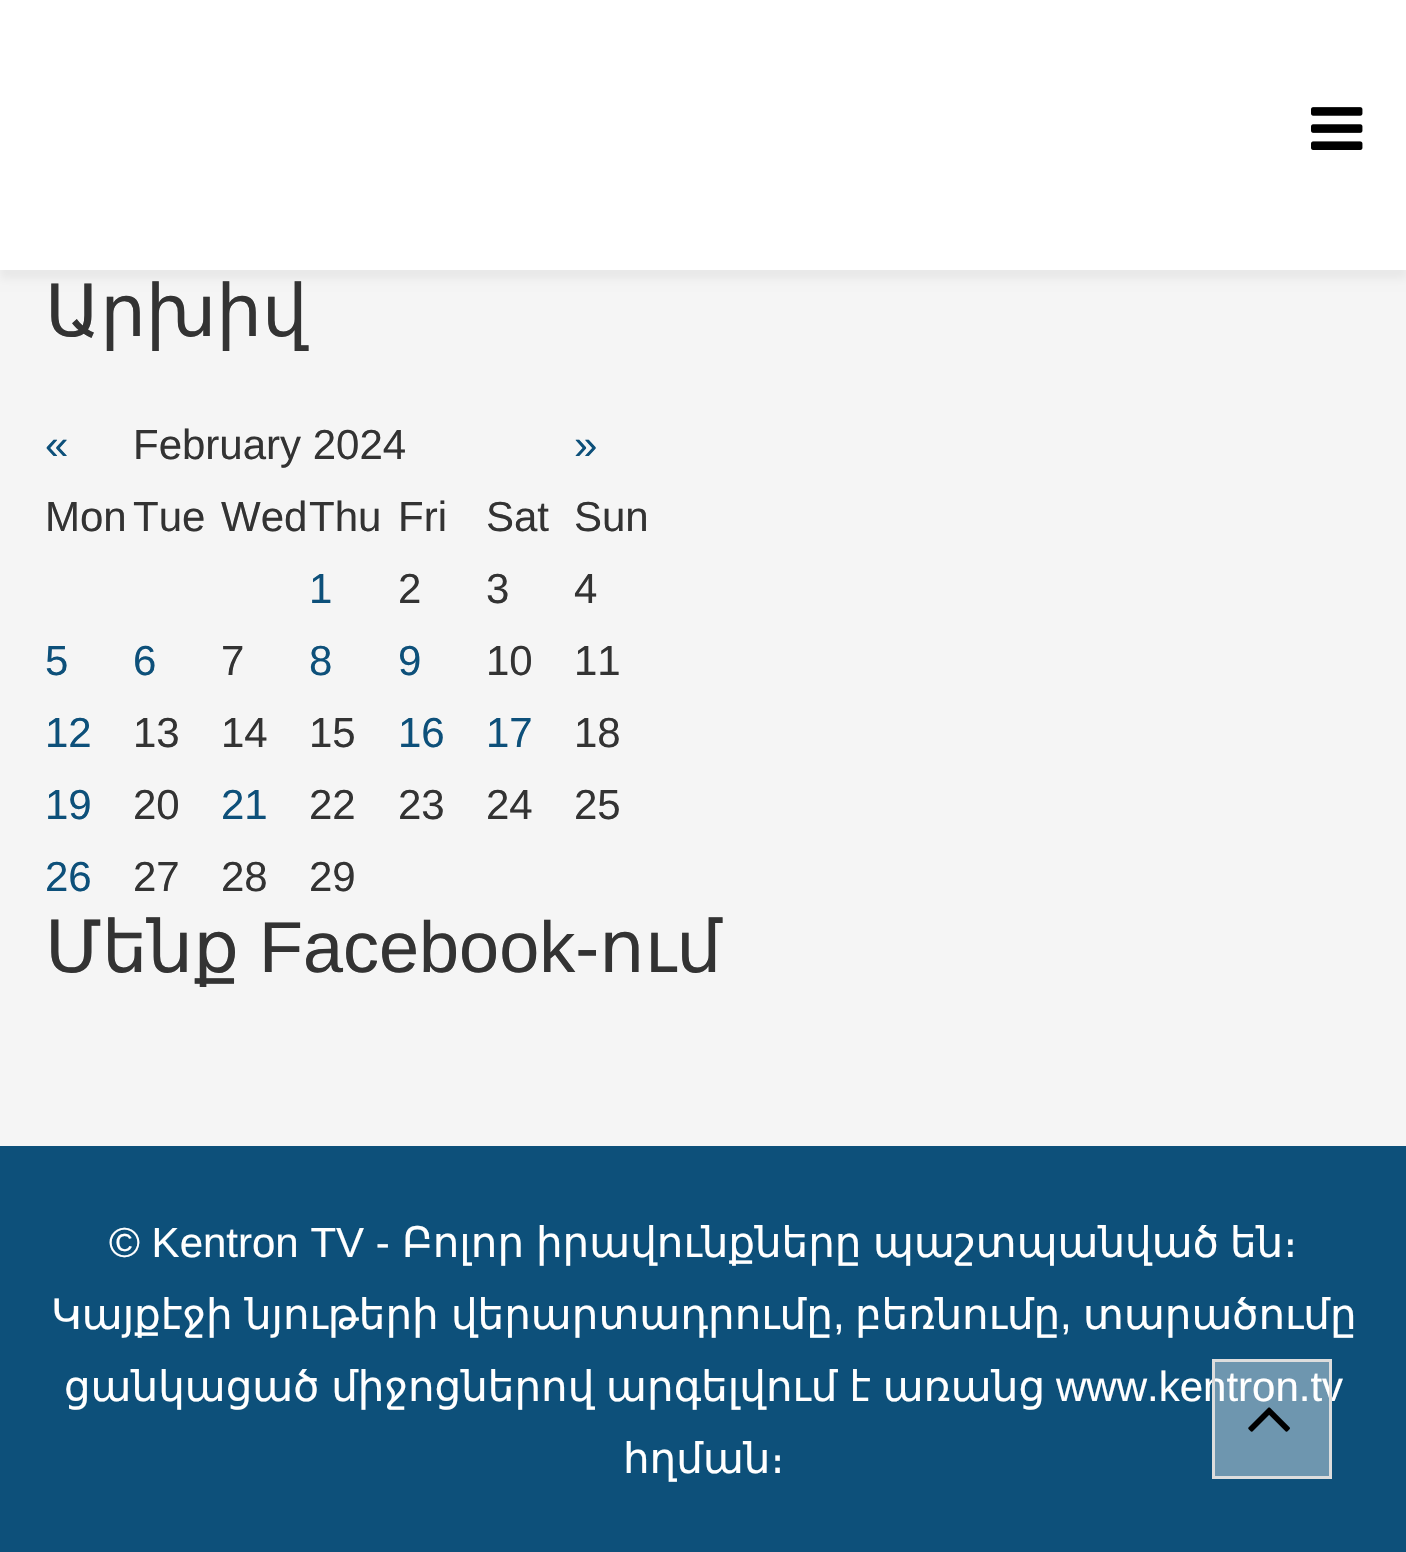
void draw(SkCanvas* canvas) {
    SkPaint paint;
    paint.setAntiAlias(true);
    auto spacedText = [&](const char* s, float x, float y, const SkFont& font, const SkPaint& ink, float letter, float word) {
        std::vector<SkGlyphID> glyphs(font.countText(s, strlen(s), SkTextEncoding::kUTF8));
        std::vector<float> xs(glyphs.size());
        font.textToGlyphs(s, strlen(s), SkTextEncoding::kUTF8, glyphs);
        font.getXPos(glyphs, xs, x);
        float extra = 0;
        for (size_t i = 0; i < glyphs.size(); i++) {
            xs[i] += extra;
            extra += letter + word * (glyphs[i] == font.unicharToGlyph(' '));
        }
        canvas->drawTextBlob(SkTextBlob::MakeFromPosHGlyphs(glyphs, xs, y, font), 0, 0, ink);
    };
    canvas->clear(0xFFF5F5F5);
    paint.setColor(0x0D000000);
    paint.setMaskFilter(SkMaskFilter::MakeBlur(kNormal_SkBlurStyle, 4.5f));
    canvas->drawRect(SkRect::MakeXYWH(0, 9, 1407, 270), paint);
    paint.setMaskFilter(nullptr);
    paint.setColor(0xFFFFFFFF);
    canvas->drawRect(SkRect::MakeXYWH(0, 0, 1406, 270), paint);
    canvas->drawImageRect(SkImages::DeferredFromEncodedData(SkData::MakeFromFileName("img1.png")), SkRect::MakeXYWH(1311, 107, 52, 43), SkSamplingOptions());
    SkFont font1(fontMgr->matchFamilyStyle("DejaVu Sans", SkFontStyle::Normal()), 72);
    font1.setSubpixel(true);
    paint.setColor(0xFF333333);
    canvas->drawString("Արխիվ", 45, 336, font1, paint);
    SkFont font2(fontMgr->matchFamilyStyle("Liberation Sans", SkFontStyle::Normal()), 42);
    font2.setSubpixel(true);
    paint.setColor(0xFF0D507A);
    canvas->drawString("«", 45, 459, font2, paint);
    paint.setColor(0xFF333333);
    canvas->drawString("February 2024", 133, 459, font2, paint);
    paint.setColor(0xFF0D507A);
    canvas->drawString("»", 574, 459, font2, paint);
    paint.setColor(0xFF333333);
    canvas->drawString("Mon", 45, 531, font2, paint);
    canvas->drawString("Tue", 133, 531, font2, paint);
    canvas->drawString("Wed", 221, 531, font2, paint);
    canvas->drawString("Thu", 309, 531, font2, paint);
    canvas->drawString("Fri", 398, 531, font2, paint);
    canvas->drawString("Sat", 486, 531, font2, paint);
    canvas->drawString("Sun", 574, 531, font2, paint);
    paint.setColor(0xFF0D507A);
    canvas->drawString("1", 309, 603, font2, paint);
    paint.setColor(0xFF333333);
    canvas->drawString("2", 398, 603, font2, paint);
    canvas->drawString("3", 486, 603, font2, paint);
    canvas->drawString("4", 574, 603, font2, paint);
    paint.setColor(0xFF0D507A);
    canvas->drawString("5", 45, 675, font2, paint);
    canvas->drawString("6", 133, 675, font2, paint);
    paint.setColor(0xFF333333);
    canvas->drawString("7", 221, 675, font2, paint);
    paint.setColor(0xFF0D507A);
    canvas->drawString("8", 309, 675, font2, paint);
    canvas->drawString("9", 398, 675, font2, paint);
    paint.setColor(0xFF333333);
    canvas->drawString("10", 486, 675, font2, paint);
    canvas->drawString("11", 574, 675, font2, paint);
    paint.setColor(0xFF0D507A);
    canvas->drawString("12", 45, 747, font2, paint);
    paint.setColor(0xFF333333);
    canvas->drawString("13", 133, 747, font2, paint);
    canvas->drawString("14", 221, 747, font2, paint);
    canvas->drawString("15", 309, 747, font2, paint);
    paint.setColor(0xFF0D507A);
    canvas->drawString("16", 398, 747, font2, paint);
    canvas->drawString("17", 486, 747, font2, paint);
    paint.setColor(0xFF333333);
    canvas->drawString("18", 574, 747, font2, paint);
    paint.setColor(0xFF0D507A);
    canvas->drawString("19", 45, 819, font2, paint);
    paint.setColor(0xFF333333);
    canvas->drawString("20", 133, 819, font2, paint);
    paint.setColor(0xFF0D507A);
    canvas->drawString("21", 221, 819, font2, paint);
    paint.setColor(0xFF333333);
    canvas->drawString("22", 309, 819, font2, paint);
    canvas->drawString("23", 398, 819, font2, paint);
    canvas->drawString("24", 486, 819, font2, paint);
    canvas->drawString("25", 574, 819, font2, paint);
    paint.setColor(0xFF0D507A);
    canvas->drawString("26", 45, 891, font2, paint);
    paint.setColor(0xFF333333);
    canvas->drawString("27", 133, 891, font2, paint);
    canvas->drawString("28", 221, 891, font2, paint);
    canvas->drawString("29", 309, 891, font2, paint);
    canvas->drawString("Մենք", 45, 972, font1, paint);
    SkFont font3(fontMgr->matchFamilyStyle("Liberation Sans", SkFontStyle::Normal()), 72);
    font3.setSubpixel(true);
    canvas->drawString("Facebook-", 259, 972, font3, paint);
    canvas->drawString("ում", 599, 972, font1, paint);
    paint.setColor(0xFF0D507A);
    canvas->drawRect(SkRect::MakeXYWH(0, 1146, 1406, 406), paint);
    paint.setColor(0xFFFFFFFF);
    canvas->drawString("© Kentron TV -", 109, 1257, font2, paint);
    SkFont font4(fontMgr->matchFamilyStyle("DejaVu Sans", SkFontStyle::Normal()), 42);
    font4.setSubpixel(true);
    canvas->drawString("Բոլոր", 402, 1257, font4, paint);
    canvas->drawString("իրավունքները", 536, 1257, font4, paint);
    canvas->drawString("պաշտպանված", 873, 1257, font4, paint);
    canvas->drawString("են։", 1230, 1257, font4, paint);
    spacedText("Կայքէջի նյութերի վերարտադրումը", 51, 1329, font4, paint, 0, -1);
    canvas->drawString(",", 833, 1329, font2, paint);
    canvas->drawString("բեռնումը", 855, 1329, font4, paint);
    canvas->drawString(",", 1060, 1329, font2, paint);
    canvas->drawString("տարածումը", 1083, 1329, font4, paint);
    spacedText("ցանկացած միջոցներով արգելվում է առանց", 64, 1401, font4, paint, 0, -1.5f);
    canvas->drawString("www.kentron.tv", 1056, 1401, font2, paint);
    canvas->drawString("հղման։", 623, 1473, font4, paint);
    paint.setColor(0x66FFFFFF);
    canvas->drawRect(SkRect::MakeXYWH(1213.5f, 1360.5f, 117, 117), paint);
    paint.setStyle(SkPaint::kStroke_Style);
    paint.setStrokeWidth(3);
    paint.setColor(0xFFDDDDDD);
    canvas->drawRect(SkRect::MakeXYWH(1213.5f, 1360.5f, 117, 117), paint);
    canvas->drawImageRect(SkImages::DeferredFromEncodedData(SkData::MakeFromFileName("img2.png")), SkRect::MakeXYWH(1248, 1407, 42, 25), SkSamplingOptions());
}
